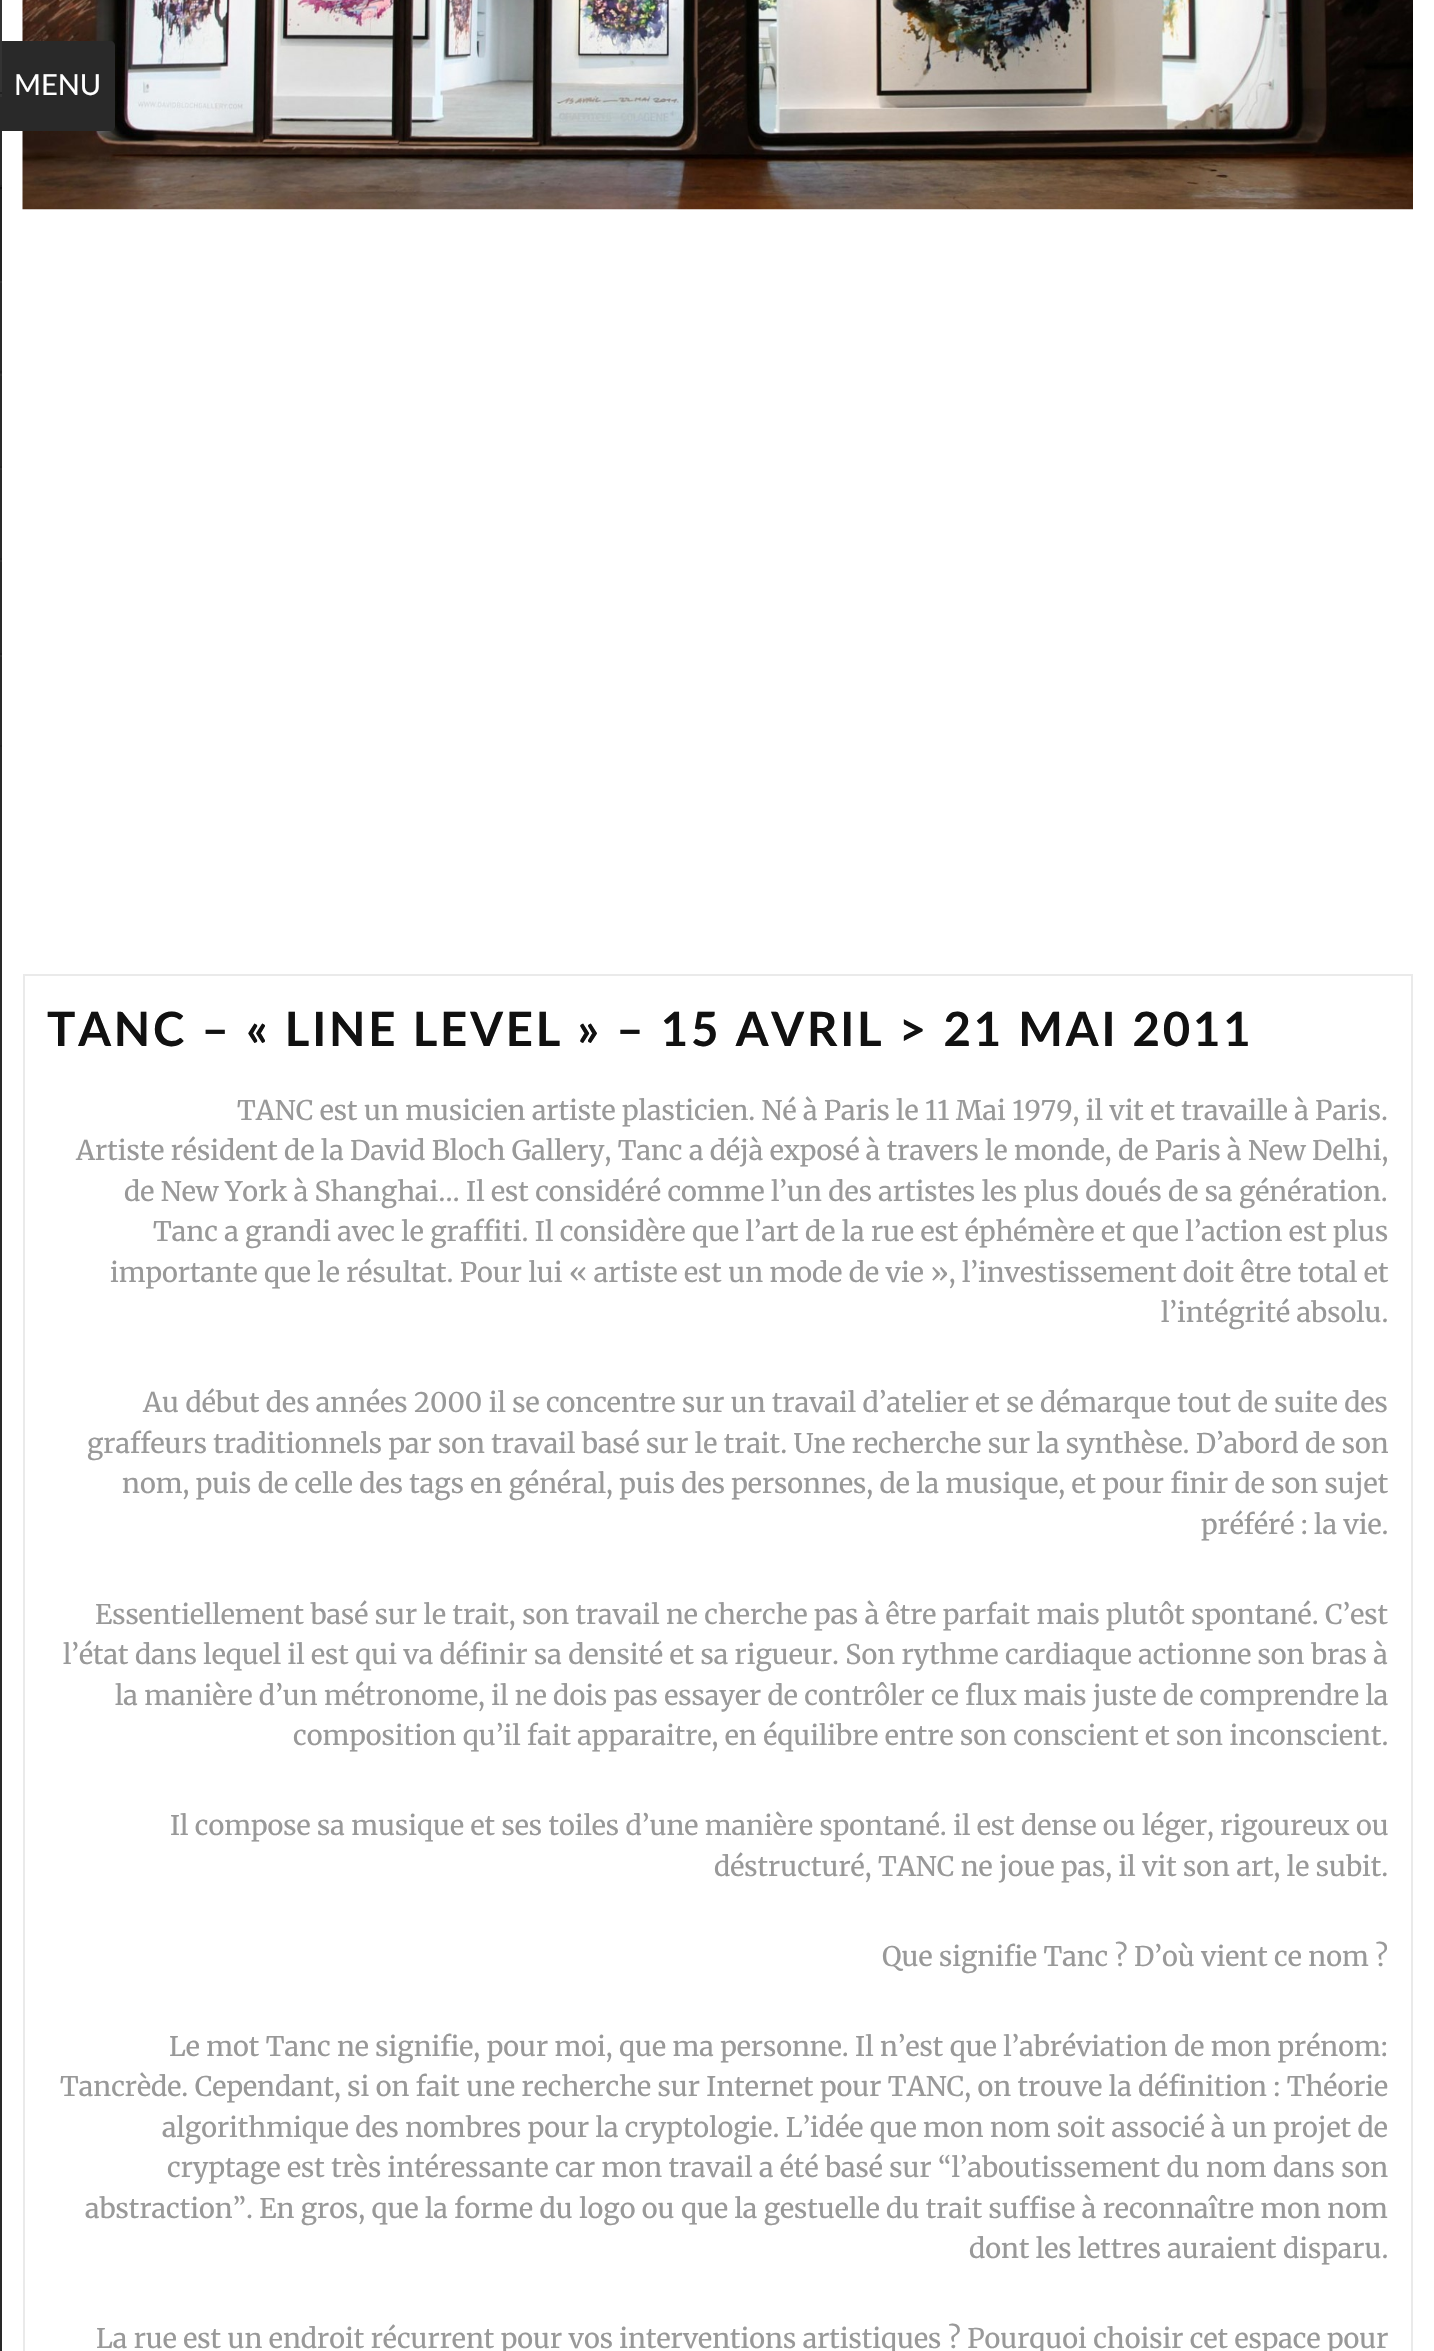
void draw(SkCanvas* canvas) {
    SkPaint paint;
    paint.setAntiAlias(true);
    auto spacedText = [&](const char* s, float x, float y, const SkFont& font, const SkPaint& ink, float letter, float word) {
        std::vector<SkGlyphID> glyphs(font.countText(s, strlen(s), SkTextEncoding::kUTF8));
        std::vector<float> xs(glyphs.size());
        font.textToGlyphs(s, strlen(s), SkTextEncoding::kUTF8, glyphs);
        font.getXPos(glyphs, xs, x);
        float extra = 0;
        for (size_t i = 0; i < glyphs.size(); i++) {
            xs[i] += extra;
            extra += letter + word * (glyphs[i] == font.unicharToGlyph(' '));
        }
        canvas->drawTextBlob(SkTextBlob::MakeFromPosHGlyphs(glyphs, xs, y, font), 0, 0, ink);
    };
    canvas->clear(0xFFFFFFFF);
    paint.setColor(0xFF292929);
    canvas->drawRect(SkRect::MakeXYWH(0, 97, 2, 2254), paint);
    paint.setColor(0xFF333333);
    canvas->drawRect(SkRect::MakeXYWH(0, 0, 2, 97), paint);
    paint.setColor(0xFF222222);
    canvas->drawRect(SkRect::MakeXYWH(0, 92, 2, 2), paint);
    canvas->drawRect(SkRect::MakeXYWH(0, 185, 2, 96), paint);
    paint.setColor(0xFF121212);
    canvas->drawRect(SkRect::MakeXYWH(0, 187, 2, 2), paint);
    paint.setColor(0xFF333333);
    canvas->drawRect(SkRect::MakeXYWH(0, 281, 2, 2), paint);
    paint.setColor(0xFF222222);
    canvas->drawRect(SkRect::MakeXYWH(0, 371, 2, 2), paint);
    paint.setColor(0xFF333333);
    canvas->drawRect(SkRect::MakeXYWH(0, 374, 2, 2), paint);
    paint.setColor(0xFF222222);
    canvas->drawRect(SkRect::MakeXYWH(0, 466, 2, 2), paint);
    paint.setColor(0xFF333333);
    canvas->drawRect(SkRect::MakeXYWH(0, 468, 2, 2), paint);
    paint.setColor(0xFF222222);
    canvas->drawRect(SkRect::MakeXYWH(0, 558, 2, 2), paint);
    paint.setColor(0xFF333333);
    canvas->drawRect(SkRect::MakeXYWH(0, 560, 2, 2), paint);
    paint.setColor(0xFF222222);
    canvas->drawRect(SkRect::MakeXYWH(0, 653, 2, 2), paint);
    paint.setColor(0xFF333333);
    canvas->drawRect(SkRect::MakeXYWH(0, 655, 2, 2), paint);
    paint.setColor(0xFF222222);
    canvas->drawRect(SkRect::MakeXYWH(0, 745, 2, 2), paint);
    canvas->drawImageRect(SkImages::DeferredFromEncodedData(SkData::MakeFromFileName("img1.png")), SkRect::MakeXYWH(22, 0, 1391, 210), SkSamplingOptions());
    paint.setColor(0xFF292929);
    canvas->drawPath(SkPathBuilder().moveTo(2, 41).lineTo(110, 41).cubicTo(113, 41, 115, 43, 115, 46).lineTo(115, 126).cubicTo(115, 129, 113, 131, 110, 131).lineTo(2, 131).close().detach(), paint);
    SkFont font1(fontMgr->matchFamilyStyle("Lato", SkFontStyle::Normal()), 29);
    font1.setSubpixel(true);
    paint.setColor(0xFFFFFFFF);
    canvas->drawString("MENU", 14, 95, font1, paint);
    paint.setStyle(SkPaint::kStroke_Style);
    paint.setStrokeWidth(2);
    paint.setColor(0xFFEAEAEA);
    canvas->drawRect(SkRect::MakeXYWH(24, 975, 1388, 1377), paint);
    SkFont font2(fontMgr->matchFamilyStyle("Lato", SkFontStyle::Bold()), 47.25f);
    font2.setSubpixel(true);
    paint.setStyle(SkPaint::kFill_Style);
    paint.setColor(0xFF111111);
    spacedText("TANC – « LINE LEVEL » – 15 AVRIL > 21 MAI 2011", 47, 1046, font2, paint, 2.85f, 0);
    SkFont font3(fontMgr->matchFamilyStyle("Merriweather", SkFontStyle::Normal()), 27);
    font3.setSubpixel(true);
    paint.setColor(0xFF999999);
    canvas->drawString("TANC est un musicien artiste plasticien. Né à Paris le 11 Mai 1979, il vit et travaille à Paris.", 237, 1120, font3, paint);
    canvas->drawString("Artiste résident de la David Bloch Gallery, Tanc a déjà exposé à travers le monde, de Paris à New Delhi,", 76, 1160, font3, paint);
    canvas->drawString("de New York à Shanghai… Il est considéré comme l’un des artistes les plus doués de sa génération.", 124, 1201, font3, paint);
    canvas->drawString("Tanc a grandi avec le graffiti. Il considère que l’art de la rue est éphémère et que l’action est plus", 153, 1241, font3, paint);
    canvas->drawString("importante que le résultat. Pour lui « artiste est un mode de vie », l’investissement doit être total et", 110, 1282, font3, paint);
    canvas->drawString("l’intégrité absolu.", 1161, 1322, font3, paint);
    canvas->drawString("Au début des années 2000 il se concentre sur un travail d’atelier et se démarque tout de suite des", 143, 1412, font3, paint);
    canvas->drawString("graffeurs traditionnels par son travail basé sur le trait. Une recherche sur la synthèse. D’abord de son", 87, 1453, font3, paint);
    canvas->drawString("nom, puis de celle des tags en général, puis des personnes, de la musique, et pour finir de son sujet", 122, 1493, font3, paint);
    canvas->drawString("préféré : la vie.", 1201, 1534, font3, paint);
    canvas->drawString("Essentiellement basé sur le trait, son travail ne cherche pas à être parfait mais plutôt spontané. C’est", 95, 1624, font3, paint);
    canvas->drawString("l’état dans lequel il est qui va définir sa densité et sa rigueur. Son rythme cardiaque actionne son bras à", 63, 1664, font3, paint);
    canvas->drawString("la manière d’un métronome, il ne dois pas essayer de contrôler ce flux mais juste de comprendre la", 115, 1705, font3, paint);
    canvas->drawString("composition qu’il fait apparaitre, en équilibre entre son conscient et son inconscient.", 293, 1745, font3, paint);
    canvas->drawString("Il compose sa musique et ses toiles d’une manière spontané. il est dense ou léger, rigoureux ou", 170, 1835, font3, paint);
    canvas->drawString("déstructuré, TANC ne joue pas, il vit son art, le subit.", 714, 1876, font3, paint);
    canvas->drawString("Que signifie Tanc ? D’où vient ce nom ?", 882, 1966, font3, paint);
    canvas->drawString("Le mot Tanc ne signifie, pour moi, que ma personne. Il n’est que l’abréviation de mon prénom:", 169, 2056, font3, paint);
    canvas->drawString("Tancrède. Cependant, si on fait une recherche sur Internet pour TANC, on trouve la définition : Théorie", 60, 2096, font3, paint);
    canvas->drawString("algorithmique des nombres pour la cryptologie. L’idée que mon nom soit associé à un projet de", 162, 2137, font3, paint);
    canvas->drawString("cryptage est très intéressante car mon travail a été basé sur “l’aboutissement du nom dans son", 167, 2177, font3, paint);
    canvas->drawString("abstraction”. En gros, que la forme du logo ou que la gestuelle du trait suffise à reconnaître mon nom", 85, 2218, font3, paint);
    canvas->drawString("dont les lettres auraient disparu.", 969, 2258, font3, paint);
    canvas->drawString("La rue est un endroit récurrent pour vos interventions artistiques ? Pourquoi choisir cet espace pour", 96, 2348, font3, paint);
}
